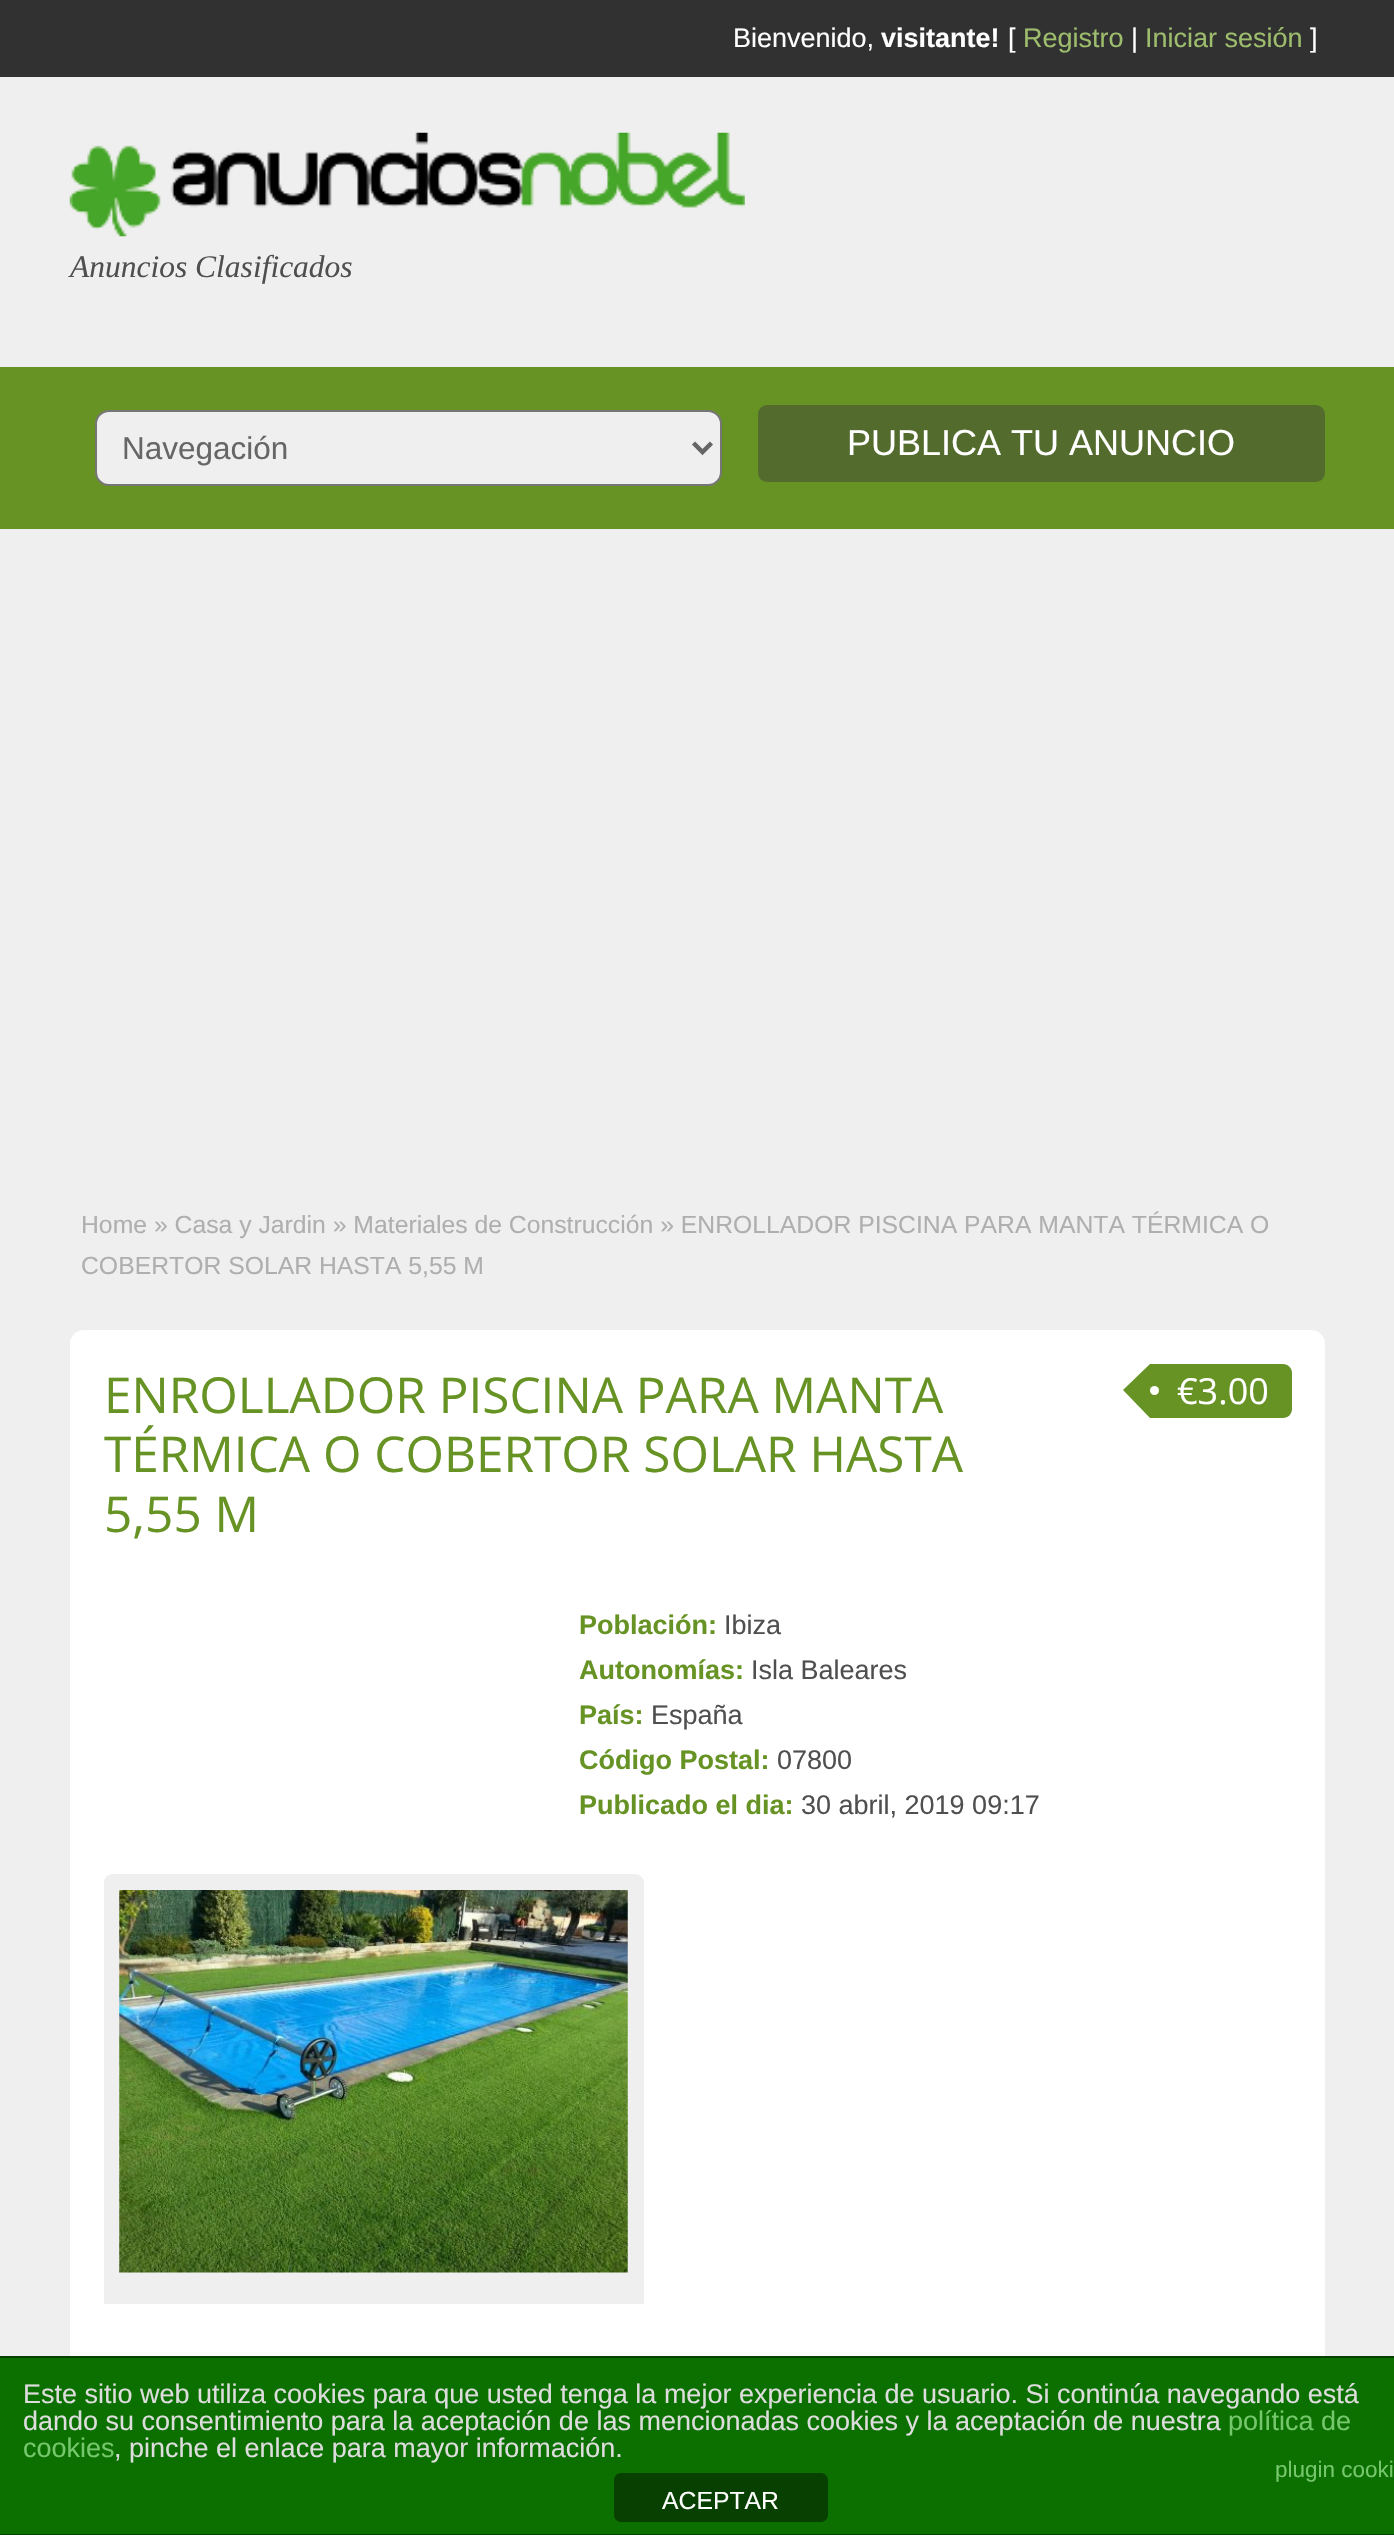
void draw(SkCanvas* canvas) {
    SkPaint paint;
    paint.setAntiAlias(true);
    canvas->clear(0xFFEFEFEF);
    paint.setColor(0xFF313131);
    canvas->drawRect(SkRect::MakeXYWH(0, 0, 1394, 77), paint);
    SkFont font1(fontMgr->matchFamilyStyle("Liberation Sans", SkFontStyle::Normal()), 27);
    font1.setSubpixel(true);
    paint.setColor(0xFFFFFFFF);
    canvas->drawString("Bienvenido,", 733, 47, font1, paint);
    SkFont font2(fontMgr->matchFamilyStyle("Liberation Sans", SkFontStyle::Bold()), 27);
    font2.setSubpixel(true);
    canvas->drawString("visitante!", 881, 47, font2, paint);
    canvas->drawString("[", 1008, 47, font1, paint);
    paint.setColor(0xFF9DBD6D);
    canvas->drawString("Registro", 1023, 47, font1, paint);
    paint.setColor(0xFFFFFFFF);
    canvas->drawString("|", 1131, 47, font1, paint);
    paint.setColor(0xFF9DBD6D);
    canvas->drawString("Iniciar sesión", 1145, 47, font1, paint);
    paint.setColor(0xFFFFFFFF);
    canvas->drawString("]", 1310, 47, font1, paint);
    canvas->drawImageRect(SkImages::DeferredFromEncodedData(SkData::MakeFromFileName("img1.png")), SkRect::MakeXYWH(69, 132, 676, 105), SkSamplingOptions());
    SkFont font3(fontMgr->matchFamilyStyle("Liberation Serif", SkFontStyle::Italic()), 31.5f);
    font3.setSubpixel(true);
    paint.setColor(0xFF4F4F4F);
    canvas->drawString("Anuncios Clasificados", 70, 277, font3, paint);
    paint.setColor(0xFF679325);
    canvas->drawRect(SkRect::MakeXYWH(0, 367, 1394, 162), paint);
    paint.setColor(0xFFEFEFEF);
    canvas->drawRoundRect(SkRect::MakeXYWH(96, 411, 625, 74), 13, 13, paint);
    paint.setStyle(SkPaint::kStroke_Style);
    paint.setStrokeWidth(2);
    paint.setColor(0xFF767676);
    canvas->drawRoundRect(SkRect::MakeXYWH(96, 411, 625, 74), 13, 13, paint);
    paint.setStrokeWidth(4.5f);
    paint.setColor(0xFF666666);
    canvas->drawPath(SkPathBuilder().moveTo(693.5f, 443).lineTo(702.5f, 452).lineTo(711.5f, 443).detach(), paint);
    SkFont font4(fontMgr->matchFamilyStyle("Liberation Sans", SkFontStyle::Normal()), 31.5f);
    font4.setSubpixel(true);
    paint.setStyle(SkPaint::kFill_Style);
    canvas->drawString("Navegación", 122, 459, font4, paint);
    paint.setColor(0xFF536C2E);
    canvas->drawRoundRect(SkRect::MakeXYWH(758, 405, 567, 77), 9, 9, paint);
    SkFont font5(fontMgr->matchFamilyStyle("Liberation Sans", SkFontStyle::Normal()), 36);
    font5.setSubpixel(true);
    paint.setColor(0xFFFFFFFF);
    canvas->drawString("PUBLICA TU ANUNCIO", 847, 455, font5, paint);
    SkFont font6(fontMgr->matchFamilyStyle("Liberation Sans", SkFontStyle::Normal()), 24.75f);
    font6.setSubpixel(true);
    paint.setColor(0xFFAFAFAF);
    canvas->drawString("Home » Casa y Jardin » Materiales de Construcción » ENROLLADOR PISCINA PARA MANTA TÉRMICA O", 81, 1233, font6, paint);
    canvas->drawString("COBERTOR SOLAR HASTA 5,55 M", 81, 1274, font6, paint);
    paint.setColor(0xFFFFFFFF);
    canvas->drawRoundRect(SkRect::MakeXYWH(70, 1330, 1255, 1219), 14, 14, paint);
    SkFont font7(fontMgr->matchFamilyStyle("Open Sans", SkFontStyle::Normal()), 49.5f);
    font7.setSubpixel(true);
    paint.setColor(0xFF679325);
    canvas->drawString("ENROLLADOR PISCINA PARA MANTA", 104, 1413, font7, paint);
    canvas->drawString("TÉRMICA O COBERTOR SOLAR HASTA", 104, 1472, font7, paint);
    canvas->drawString("5,55 M", 104, 1532, font7, paint);
    canvas->drawPath(SkPathBuilder().moveTo(1150, 1364).lineTo(1283, 1364).cubicTo(1288, 1364, 1292, 1368, 1292, 1373).lineTo(1292, 1409).cubicTo(1292, 1414, 1288, 1418, 1283, 1418).lineTo(1150, 1418).close().detach(), paint);
    canvas->drawPath(SkPathBuilder().moveTo(1150, 1364).lineTo(1150, 1418).lineTo(1123, 1390).close().detach(), paint);
    paint.setColor(0xFFFFFFFF);
    canvas->drawCircle(1154.5f, 1390.5f, 4.5f, paint);
    SkFont font8(fontMgr->matchFamilyStyle("Open Sans", SkFontStyle::Normal()), 36);
    font8.setSubpixel(true);
    canvas->drawString("€3.00", 1177, 1404, font8, paint);
    paint.setColor(0xFF679325);
    canvas->drawString("Población:", 579, 1634, font2, paint);
    paint.setColor(0xFF4F4F4F);
    canvas->drawString("Ibiza", 724, 1634, font1, paint);
    paint.setColor(0xFF679325);
    canvas->drawString("Autonomías:", 579, 1679, font2, paint);
    paint.setColor(0xFF4F4F4F);
    canvas->drawString("Isla Baleares", 751, 1679, font1, paint);
    paint.setColor(0xFF679325);
    canvas->drawString("País:", 579, 1724, font2, paint);
    paint.setColor(0xFF4F4F4F);
    canvas->drawString("España", 651, 1724, font1, paint);
    paint.setColor(0xFF679325);
    canvas->drawString("Código Postal:", 579, 1769, font2, paint);
    paint.setColor(0xFF4F4F4F);
    canvas->drawString("07800", 777, 1769, font1, paint);
    paint.setColor(0xFF679325);
    canvas->drawString("Publicado el dia:", 579, 1814, font2, paint);
    paint.setColor(0xFF4F4F4F);
    canvas->drawString("30 abril, 2019 09:17", 801, 1814, font1, paint);
    paint.setColor(0xFFEFEFEF);
    canvas->drawPath(SkPathBuilder().moveTo(113, 1874).lineTo(635, 1874).cubicTo(640, 1874, 644, 1878, 644, 1883).lineTo(644, 2304).lineTo(104, 2304).lineTo(104, 1883).cubicTo(104, 1878, 108, 1874, 113, 1874).close().detach(), paint);
    canvas->drawImageRect(SkImages::DeferredFromEncodedData(SkData::MakeFromFileName("img2.png")), SkRect::MakeXYWH(119, 1890, 509, 383), SkSamplingOptions());
    paint.setColor(0xFF0B7000);
    canvas->drawRect(SkRect::MakeXYWH(0, 2358, 1394, 176), paint);
    paint.setColor(0xFF064000);
    canvas->drawRect(SkRect::MakeXYWH(0, 2356, 1394, 2), paint);
    canvas->drawRect(SkRect::MakeXYWH(0, 2534, 1394, 1), paint);
    paint.setColor(0xFFDDDDDD);
    canvas->drawString("Este sitio web utiliza cookies para que usted tenga la mejor experiencia de usuario. Si continúa navegando está", 23, 2403, font1, paint);
    canvas->drawString("dando su consentimiento para la aceptación de las mencionadas cookies y la aceptación de nuestra", 23, 2430, font1, paint);
    paint.setColor(0xFF75C76C);
    canvas->drawString("política de", 1228, 2430, font1, paint);
    canvas->drawString("cookies", 23, 2457, font1, paint);
    paint.setColor(0xFFDDDDDD);
    canvas->drawString(", pinche el enlace para mayor información.", 114, 2457, font1, paint);
    SkFont font9(fontMgr->matchFamilyStyle("Liberation Sans", SkFontStyle::Normal()), 22.5f);
    font9.setSubpixel(true);
    paint.setColor(0xFF75C76C);
    canvas->drawString("plugin cooki", 1275, 2477, font9, paint);
    paint.setColor(0xFF074000);
    canvas->drawRoundRect(SkRect::MakeXYWH(614, 2473, 214, 49), 7, 7, paint);
    paint.setColor(0xFFFFFFFF);
    canvas->drawString("ACEPTAR", 662, 2509, font6, paint);
}
